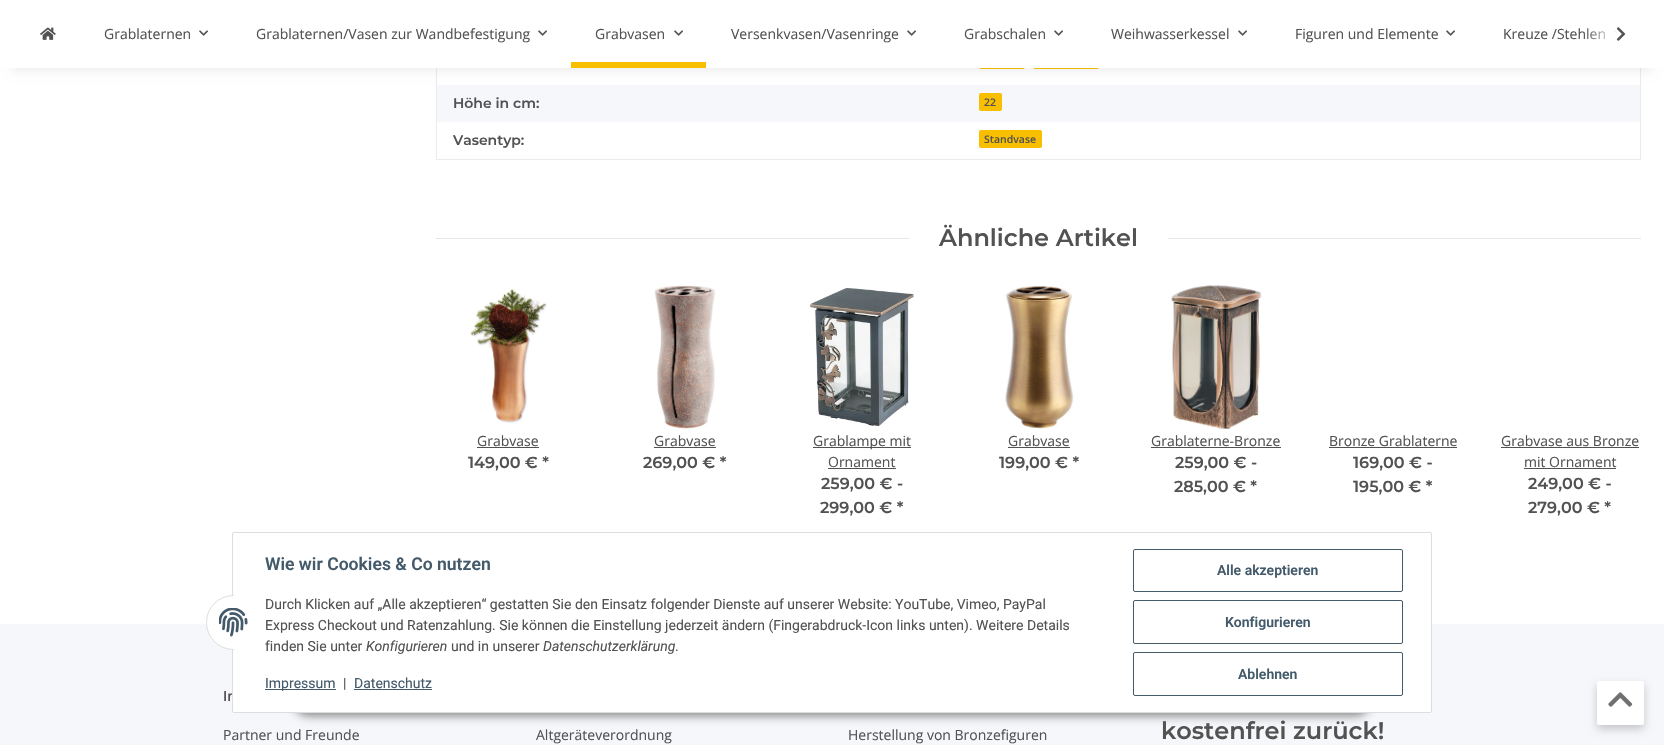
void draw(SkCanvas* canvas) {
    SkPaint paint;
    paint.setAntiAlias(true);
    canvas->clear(0xFFF5F7FA);
    paint.setColor(0xFFFFFFFF);
    canvas->drawRect(SkRect::MakeXYWH(0, 68, 1664, 556), paint);
    paint.setColor(0xFFF8BF00);
    canvas->drawRoundRect(SkRect::MakeXYWH(979, 51, 46, 18), 2, 2, paint);
    canvas->drawRoundRect(SkRect::MakeXYWH(1033, 51, 66, 18), 2, 2, paint);
    paint.setColor(0xFFF5F7FA);
    canvas->drawRect(SkRect::MakeXYWH(437, 85, 1203, 37), paint);
    paint.setColor(0xFFEBEBEB);
    canvas->drawRect(SkRect::MakeXYWH(1640, 68, 1, 92), paint);
    canvas->drawRect(SkRect::MakeXYWH(436, 159, 1205, 1), paint);
    canvas->drawRect(SkRect::MakeXYWH(436, 68, 1, 92), paint);
    paint.setColor(0x0F000000);
    paint.setMaskFilter(SkMaskFilter::MakeBlur(kNormal_SkBlurStyle, 4.5f));
    canvas->drawRect(SkRect::MakeXYWH(12, 28, 1640, 44), paint);
    paint.setMaskFilter(nullptr);
    paint.setColor(0xFFFFFFFF);
    canvas->drawRect(SkRect::MakeXYWH(0, 0, 1664, 68), paint);
    SkFont font1(fontMgr->matchFamilyStyle("Open Sans", SkFontStyle::Normal()), 14);
    font1.setSubpixel(true);
    paint.setColor(0xFF525252);
    canvas->drawString("Kreuze /Stehlen", 1503, 39, font1, paint);
    canvas->drawImageRect(SkImages::DeferredFromEncodedData(SkData::MakeFromFileName("img4.png")), SkRect::MakeXYWH(1614, 30, 3, 5), SkSamplingOptions());
    {
        const SkColor colors[] = {0x03FFFFFF, 0xFFFFFFFF};
        const float stops[] = {0, 0.7f};
        const SkPoint ends[] = {{1584, 34}, {1632, 34}};
        paint.setShader(SkGradientShader::MakeLinear(ends, colors, stops, 2, SkTileMode::kClamp));
        paint.setAlpha(255);
    }
    canvas->drawRect(SkRect::MakeXYWH(1584, 28, 33, 12), paint);
    canvas->drawImageRect(SkImages::DeferredFromEncodedData(SkData::MakeFromFileName("img1.png")), SkRect::MakeXYWH(1616, 27, 10, 14), SkSamplingOptions());
    canvas->drawImageRect(SkImages::DeferredFromEncodedData(SkData::MakeFromFileName("img2.png")), SkRect::MakeXYWH(40, 27, 16, 13), SkSamplingOptions());
    paint.setShader(nullptr);
    paint.setColor(0xFF525252);
    canvas->drawString("Grablaternen", 104, 39, font1, paint);
    canvas->drawImageRect(SkImages::DeferredFromEncodedData(SkData::MakeFromFileName("img3.png")), SkRect::MakeXYWH(199, 30, 9, 6), SkSamplingOptions());
    canvas->drawString("Grablaternen/Vasen zur Wandbefestigung", 256, 39, font1, paint);
    canvas->drawImageRect(SkImages::DeferredFromEncodedData(SkData::MakeFromFileName("img3.png")), SkRect::MakeXYWH(538, 30, 9, 6), SkSamplingOptions());
    canvas->drawString("Grabvasen", 595, 39, font1, paint);
    canvas->drawImageRect(SkImages::DeferredFromEncodedData(SkData::MakeFromFileName("img3.png")), SkRect::MakeXYWH(674, 30, 9, 6), SkSamplingOptions());
    paint.setColor(0xFFF8BF00);
    canvas->drawRect(SkRect::MakeXYWH(571, 62, 135, 6), paint);
    paint.setColor(0xFF525252);
    canvas->drawString("Versenkvasen/Vasenringe", 731, 39, font1, paint);
    canvas->drawImageRect(SkImages::DeferredFromEncodedData(SkData::MakeFromFileName("img3.png")), SkRect::MakeXYWH(907, 30, 9, 6), SkSamplingOptions());
    canvas->drawString("Grabschalen", 964, 39, font1, paint);
    canvas->drawImageRect(SkImages::DeferredFromEncodedData(SkData::MakeFromFileName("img3.png")), SkRect::MakeXYWH(1054, 30, 9, 6), SkSamplingOptions());
    canvas->drawString("Weihwasserkessel", 1111, 39, font1, paint);
    canvas->drawImageRect(SkImages::DeferredFromEncodedData(SkData::MakeFromFileName("img3.png")), SkRect::MakeXYWH(1238, 30, 9, 6), SkSamplingOptions());
    canvas->drawString("Figuren und Elemente", 1295, 39, font1, paint);
    canvas->drawImageRect(SkImages::DeferredFromEncodedData(SkData::MakeFromFileName("img3.png")), SkRect::MakeXYWH(1446, 30, 9, 6), SkSamplingOptions());
    SkFont font2(fontMgr->matchFamilyStyle("Montserrat", SkFontStyle(600, SkFontStyle::kNormal_Width, SkFontStyle::kUpright_Slant)), 14);
    font2.setSubpixel(true);
    canvas->drawString("Höhe in cm:", 453, 108, font2, paint);
    paint.setColor(0xFFF8BF00);
    canvas->drawRoundRect(SkRect::MakeXYWH(979, 93, 23, 18), 2, 2, paint);
    SkFont font3(fontMgr->matchFamilyStyle("Open Sans", SkFontStyle(600, SkFontStyle::kNormal_Width, SkFontStyle::kUpright_Slant)), 10.5f);
    font3.setSubpixel(true);
    paint.setColor(0xFF525252);
    canvas->drawString("22", 984, 106, font3, paint);
    canvas->drawString("Vasentyp:", 453, 145, font2, paint);
    paint.setColor(0xFFF8BF00);
    canvas->drawRoundRect(SkRect::MakeXYWH(979, 130, 63, 18), 2, 2, paint);
    paint.setColor(0xFF525252);
    canvas->drawString("Standvase", 984, 143, font3, paint);
    paint.setColor(0xFFE6E6E6);
    canvas->drawRect(SkRect::MakeXYWH(436, 238, 473, 1), paint);
    SkFont font4(fontMgr->matchFamilyStyle("Montserrat", SkFontStyle(600, SkFontStyle::kNormal_Width, SkFontStyle::kUpright_Slant)), 24);
    font4.setSubpixel(true);
    paint.setColor(0xFF525252);
    canvas->drawString("Ähnliche Artikel", 939, 246, font4, paint);
    paint.setColor(0xFFE6E6E6);
    canvas->drawRect(SkRect::MakeXYWH(1168, 238, 473, 1), paint);
    canvas->drawImageRect(SkImages::DeferredFromEncodedData(SkData::MakeFromFileName("img5.png")), SkRect::MakeXYWH(470, 289, 77, 134), SkSamplingOptions());
    paint.setColor(0xFF525252);
    canvas->drawString("Grabvase", 477, 446, font1, paint);
    canvas->drawRect(SkRect::MakeXYWH(477, 447, 62, 1), paint);
    SkFont font5(fontMgr->matchFamilyStyle("Montserrat", SkFontStyle(600, SkFontStyle::kNormal_Width, SkFontStyle::kUpright_Slant)), 16);
    font5.setSubpixel(true);
    canvas->drawString("149,00 € *", 468, 468, font5, paint);
    canvas->drawImageRect(SkImages::DeferredFromEncodedData(SkData::MakeFromFileName("img6.png")), SkRect::MakeXYWH(654, 285, 62, 144), SkSamplingOptions());
    canvas->drawString("Grabvase", 654, 446, font1, paint);
    canvas->drawRect(SkRect::MakeXYWH(654, 447, 62, 1), paint);
    canvas->drawString("269,00 € *", 643, 468, font5, paint);
    canvas->drawImageRect(SkImages::DeferredFromEncodedData(SkData::MakeFromFileName("img7.png")), SkRect::MakeXYWH(810, 288, 104, 138), SkSamplingOptions());
    canvas->drawRect(SkRect::MakeXYWH(813, 447, 98, 1), paint);
    canvas->drawString("Grablampe mit", 813, 446, font1, paint);
    canvas->drawString("Ornament", 828, 467, font1, paint);
    canvas->drawRect(SkRect::MakeXYWH(828, 468, 68, 1), paint);
    canvas->drawString("259,00 € -", 821, 489, font5, paint);
    canvas->drawString("299,00 € *", 820, 513, font5, paint);
    canvas->drawImageRect(SkImages::DeferredFromEncodedData(SkData::MakeFromFileName("img8.png")), SkRect::MakeXYWH(1005, 285, 69, 144), SkSamplingOptions());
    canvas->drawString("Grabvase", 1008, 446, font1, paint);
    canvas->drawRect(SkRect::MakeXYWH(1008, 447, 62, 1), paint);
    canvas->drawString("199,00 € *", 999, 468, font5, paint);
    canvas->drawImageRect(SkImages::DeferredFromEncodedData(SkData::MakeFromFileName("img9.png")), SkRect::MakeXYWH(1171, 285, 91, 145), SkSamplingOptions());
    canvas->drawString("Grablaterne-Bronze", 1151, 446, font1, paint);
    canvas->drawRect(SkRect::MakeXYWH(1151, 447, 130, 1), paint);
    canvas->drawString("259,00 € -", 1175, 468, font5, paint);
    canvas->drawString("285,00 € *", 1174, 492, font5, paint);
    canvas->drawString("Bronze Grablaterne", 1329, 446, font1, paint);
    canvas->drawRect(SkRect::MakeXYWH(1329, 447, 128, 1), paint);
    canvas->drawString("169,00 € -", 1353, 468, font5, paint);
    canvas->drawString("195,00 € *", 1353, 492, font5, paint);
    canvas->drawString("Grabvase aus Bronze", 1501, 446, font1, paint);
    canvas->drawRect(SkRect::MakeXYWH(1501, 447, 138, 1), paint);
    canvas->drawString("mit Ornament", 1524, 467, font1, paint);
    canvas->drawRect(SkRect::MakeXYWH(1524, 468, 92, 1), paint);
    canvas->drawString("249,00 € -", 1528, 489, font5, paint);
    canvas->drawString("279,00 € *", 1528, 513, font5, paint);
    paint.setColor(0x73000000);
    paint.setMaskFilter(SkMaskFilter::MakeBlur(kNormal_SkBlurStyle, 5));
    canvas->drawRoundRect(SkRect::MakeXYWH(293, 684, 1078, 32), 16, 16, paint);
    paint.setMaskFilter(nullptr);
    SkFont font6(fontMgr->matchFamilyStyle("Open Sans", SkFontStyle(600, SkFontStyle::kNormal_Width, SkFontStyle::kUpright_Slant)), 14);
    font6.setSubpixel(true);
    paint.setColor(0xFF525252);
    canvas->drawString("In", 223, 701, font6, paint);
    paint.setColor(0xFFFFFFFF);
    canvas->drawRoundRect(SkRect::MakeXYWH(232.5f, 532.5f, 1199, 180), 1.5f, 1.5f, paint);
    paint.setStyle(SkPaint::kStroke_Style);
    paint.setStrokeWidth(1);
    paint.setColor(0xFFDDDDDD);
    canvas->drawRoundRect(SkRect::MakeXYWH(232.5f, 532.5f, 1199, 180), 1.5f, 1.5f, paint);
    paint.setStyle(SkPaint::kFill_Style);
    paint.setColor(0xFFFFFFFF);
    canvas->drawCircle(233.5f, 622.5f, 27, paint);
    paint.setStyle(SkPaint::kStroke_Style);
    paint.setColor(0xFFDDDDDD);
    canvas->drawCircle(233.5f, 622.5f, 27, paint);
    paint.setStyle(SkPaint::kFill_Style);
    paint.setColor(0xFFFFFFFF);
    canvas->drawRect(SkRect::MakeXYWH(234, 595, 27, 55), paint);
    canvas->drawImageRect(SkImages::DeferredFromEncodedData(SkData::MakeFromFileName("img10.png")), SkRect::MakeXYWH(219, 608, 29, 29), SkSamplingOptions());
    SkFont font7(fontMgr->matchFamilyStyle("Roboto", SkFontStyle(600, SkFontStyle::kNormal_Width, SkFontStyle::kUpright_Slant)), 17.6f);
    font7.setSubpixel(true);
    paint.setColor(0xFF435A6B);
    canvas->drawString("Wie wir Cookies & Co nutzen", 265, 570, font7, paint);
    SkFont font8(fontMgr->matchFamilyStyle("Roboto", SkFontStyle::Normal()), 14);
    font8.setSubpixel(true);
    paint.setColor(0xFF525252);
    canvas->drawString("Durch Klicken auf „Alle akzeptieren“ gestatten Sie den Einsatz folgender Dienste auf unserer Website: YouTube, Vimeo, PayPal", 265, 609, font8, paint);
    canvas->drawString("Express Checkout und Ratenzahlung. Sie können die Einstellung jederzeit ändern (Fingerabdruck-Icon links unten). Weitere Details", 265, 630, font8, paint);
    canvas->drawString("finden Sie unter", 265, 651, font8, paint);
    SkFont font9(fontMgr->matchFamilyStyle("Roboto", SkFontStyle::Italic()), 14);
    font9.setSubpixel(true);
    canvas->drawString("Konfigurieren", 366, 651, font9, paint);
    canvas->drawString("und in unserer", 451, 651, font8, paint);
    canvas->drawString("Datenschutzerklärung", 543, 651, font9, paint);
    canvas->drawString(".", 675, 651, font8, paint);
    paint.setColor(0xFF435A6B);
    canvas->drawRect(SkRect::MakeXYWH(265, 689, 71, 1), paint);
    canvas->drawString("Impressum", 265, 688, font8, paint);
    paint.setColor(0xFF525252);
    canvas->drawString("|", 343, 688, font8, paint);
    paint.setColor(0xFF435A6B);
    canvas->drawString("Datenschutz", 354, 688, font8, paint);
    canvas->drawRect(SkRect::MakeXYWH(354, 689, 78, 1), paint);
    paint.setStyle(SkPaint::kStroke_Style);
    canvas->drawRoundRect(SkRect::MakeXYWH(1133.5f, 549.5f, 269, 42), 1.5f, 1.5f, paint);
    SkFont font10(fontMgr->matchFamilyStyle("Roboto", SkFontStyle(600, SkFontStyle::kNormal_Width, SkFontStyle::kUpright_Slant)), 14);
    font10.setSubpixel(true);
    paint.setStyle(SkPaint::kFill_Style);
    canvas->drawString("Alle akzeptieren", 1217, 575, font10, paint);
    paint.setStyle(SkPaint::kStroke_Style);
    canvas->drawRoundRect(SkRect::MakeXYWH(1133.5f, 600.5f, 269, 43), 1.5f, 1.5f, paint);
    paint.setStyle(SkPaint::kFill_Style);
    canvas->drawString("Konfigurieren", 1225, 627, font10, paint);
    paint.setStyle(SkPaint::kStroke_Style);
    canvas->drawRoundRect(SkRect::MakeXYWH(1133.5f, 652.5f, 269, 43), 1.5f, 1.5f, paint);
    paint.setStyle(SkPaint::kFill_Style);
    canvas->drawString("Ablehnen", 1238, 679, font10, paint);
    paint.setColor(0xFF525252);
    canvas->drawString("Partner und Freunde", 223, 740, font1, paint);
    canvas->drawString("Altgeräteverordnung", 536, 740, font1, paint);
    canvas->drawString("Herstellung von Bronzefiguren", 848, 740, font1, paint);
    canvas->drawString("kostenfrei zurück!", 1161, 739, font4, paint);
    paint.setColor(0x33000000);
    paint.setMaskFilter(SkMaskFilter::MakeBlur(kNormal_SkBlurStyle, 4));
    canvas->drawRoundRect(SkRect::MakeXYWH(1597, 685, 47, 44), 2, 2, paint);
    paint.setMaskFilter(nullptr);
    paint.setColor(0xFFFFFFFF);
    canvas->drawRoundRect(SkRect::MakeXYWH(1597, 681, 47, 44), 2, 2, paint);
    canvas->drawImageRect(SkImages::DeferredFromEncodedData(SkData::MakeFromFileName("img11.png")), SkRect::MakeXYWH(1608, 692, 25, 15), SkSamplingOptions());
}
